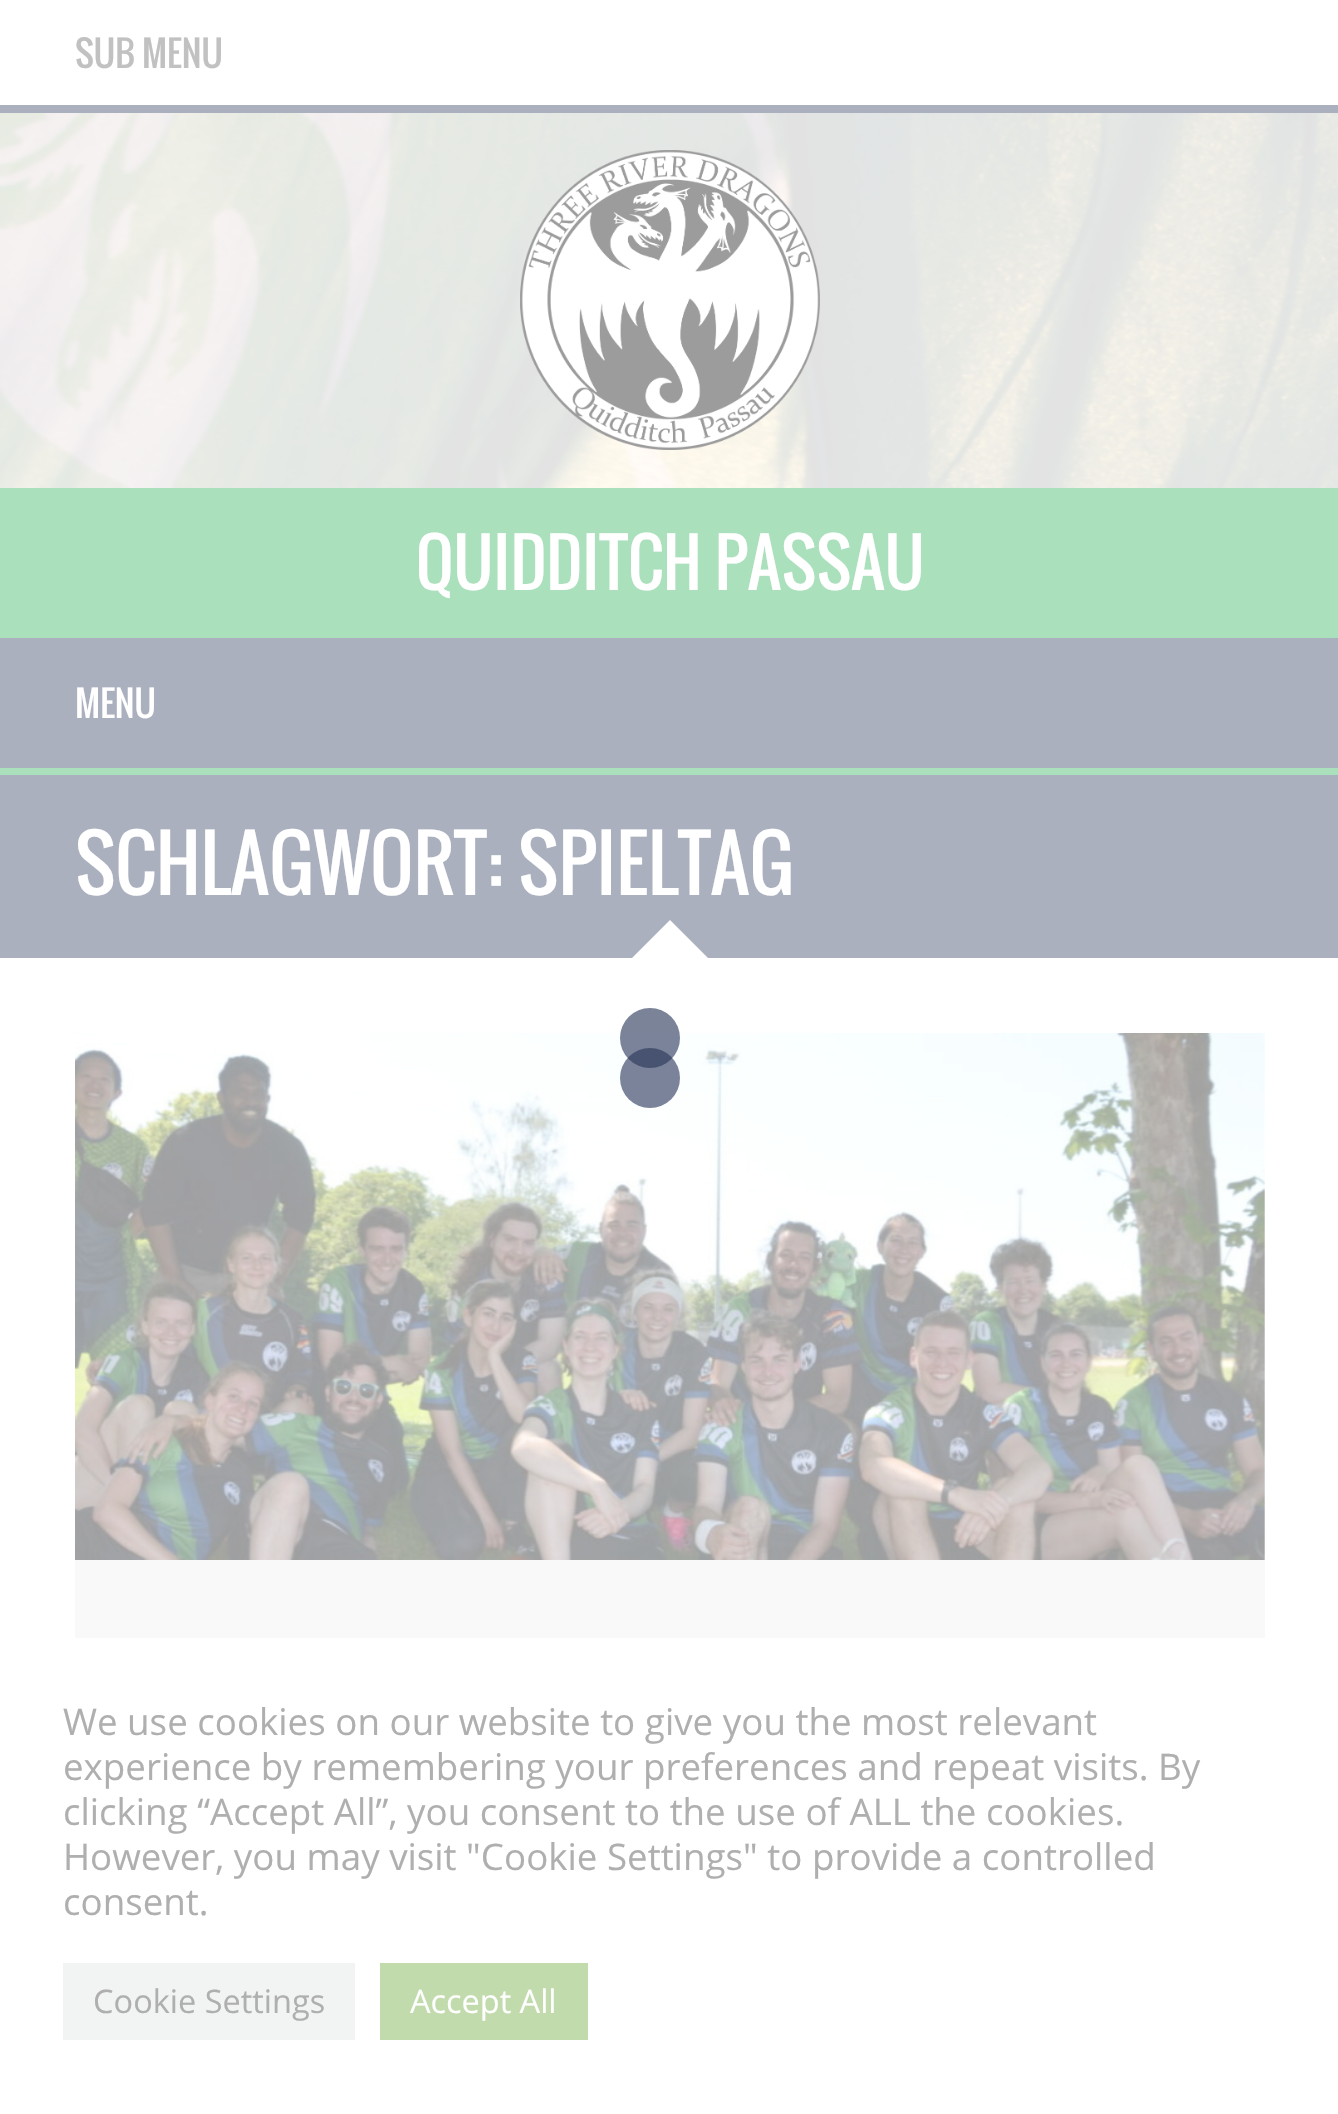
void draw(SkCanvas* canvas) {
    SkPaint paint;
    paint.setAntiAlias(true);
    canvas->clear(0xFFFFFFFF);
    canvas->drawImageRect(SkImages::DeferredFromEncodedData(SkData::MakeFromFileName("img1.png")), SkRect::MakeXYWH(0, 113, 1338, 375), SkSamplingOptions());
    paint.setColor(0xFFABB0BE);
    canvas->drawRect(SkRect::MakeXYWH(0, 105, 1338, 8), paint);
    SkFont font1(fontMgr->matchFamilyStyle("Oswald", SkFontStyle::Normal()), 35);
    font1.setSubpixel(true);
    paint.setColor(0xFFC1C1C1);
    canvas->drawString("SUB MENU", 75, 68, font1, paint);
    paint.setColor(0xB3FFFFFF);
    canvas->drawRect(SkRect::MakeXYWH(0, 113, 1338, 375), paint);
    canvas->drawImageRect(SkImages::DeferredFromEncodedData(SkData::MakeFromFileName("img2.png")), SkRect::MakeXYWH(520, 150, 300, 300), SkSamplingOptions());
    paint.setColor(0xFFABE0BC);
    canvas->drawRect(SkRect::MakeXYWH(0, 488, 1338, 150), paint);
    SkFont font2(fontMgr->matchFamilyStyle("Oswald", SkFontStyle::Normal()), 65);
    font2.setSubpixel(true);
    paint.setColor(0xFFFFFFFF);
    canvas->drawString("QUIDDITCH PASSAU", 416, 590, font2, paint);
    paint.setColor(0xFFABB0BE);
    canvas->drawRect(SkRect::MakeXYWH(0, 638, 1338, 130), paint);
    paint.setColor(0xFFABE0BC);
    canvas->drawRect(SkRect::MakeXYWH(0, 768, 1338, 7), paint);
    paint.setColor(0xFFFFFFFF);
    canvas->drawString("MENU", 75, 718, font1, paint);
    paint.setColor(0xFFABB0BE);
    canvas->drawRect(SkRect::MakeXYWH(0, 775, 1338, 183), paint);
    SkFont font3(fontMgr->matchFamilyStyle("Oswald", SkFontStyle::Normal()), 75);
    font3.setSubpixel(true);
    paint.setColor(0xFFFFFFFF);
    canvas->drawString("SCHLAGWORT: SPIELTAG", 75, 895, font3, paint);
    canvas->drawPath(SkPathBuilder().moveTo(708, 958).lineTo(632, 958).lineTo(670, 920).close().detach(), paint);
    canvas->drawImageRect(SkImages::DeferredFromEncodedData(SkData::MakeFromFileName("img3.png")), SkRect::MakeXYWH(75, 1033, 1190, 527), SkSamplingOptions());
    paint.setColor(0xFFF9F9F9);
    canvas->drawRect(SkRect::MakeXYWH(75, 1560, 1190, 78), paint);
    SkFont font4(fontMgr->matchFamilyStyle("Open Sans", SkFontStyle::Normal()), 36.7f);
    font4.setSubpixel(true);
    paint.setColor(0xFFAFAFAF);
    canvas->drawString("We use cookies on our website to give you the most relevant", 63, 1735, font4, paint);
    canvas->drawString("experience by remembering your preferences and repeat visits. By", 63, 1780, font4, paint);
    canvas->drawString("clicking “Accept All”, you consent to the use of ALL the cookies.", 63, 1825, font4, paint);
    canvas->drawString("However, you may visit \"Cookie Settings\" to provide a controlled", 63, 1870, font4, paint);
    canvas->drawString("consent.", 63, 1915, font4, paint);
    paint.setColor(0xFFF2F3F3);
    canvas->drawRect(SkRect::MakeXYWH(63, 1963, 292, 77), paint);
    SkFont font5(fontMgr->matchFamilyStyle("Open Sans", SkFontStyle::Normal()), 32.5f);
    font5.setSubpixel(true);
    paint.setColor(0xFFAFAFAF);
    canvas->drawString("Cookie Settings", 93, 2013, font5, paint);
    paint.setColor(0xFFC1DBAC);
    canvas->drawRect(SkRect::MakeXYWH(380, 1963, 208, 77), paint);
    paint.setColor(0xFFFFFFFF);
    canvas->drawString("Accept All", 410, 2013, font5, paint);
    paint.setColor(0x9C273558);
    canvas->drawCircle(650, 1038, 30, paint);
    canvas->drawCircle(650, 1078, 30, paint);
}
